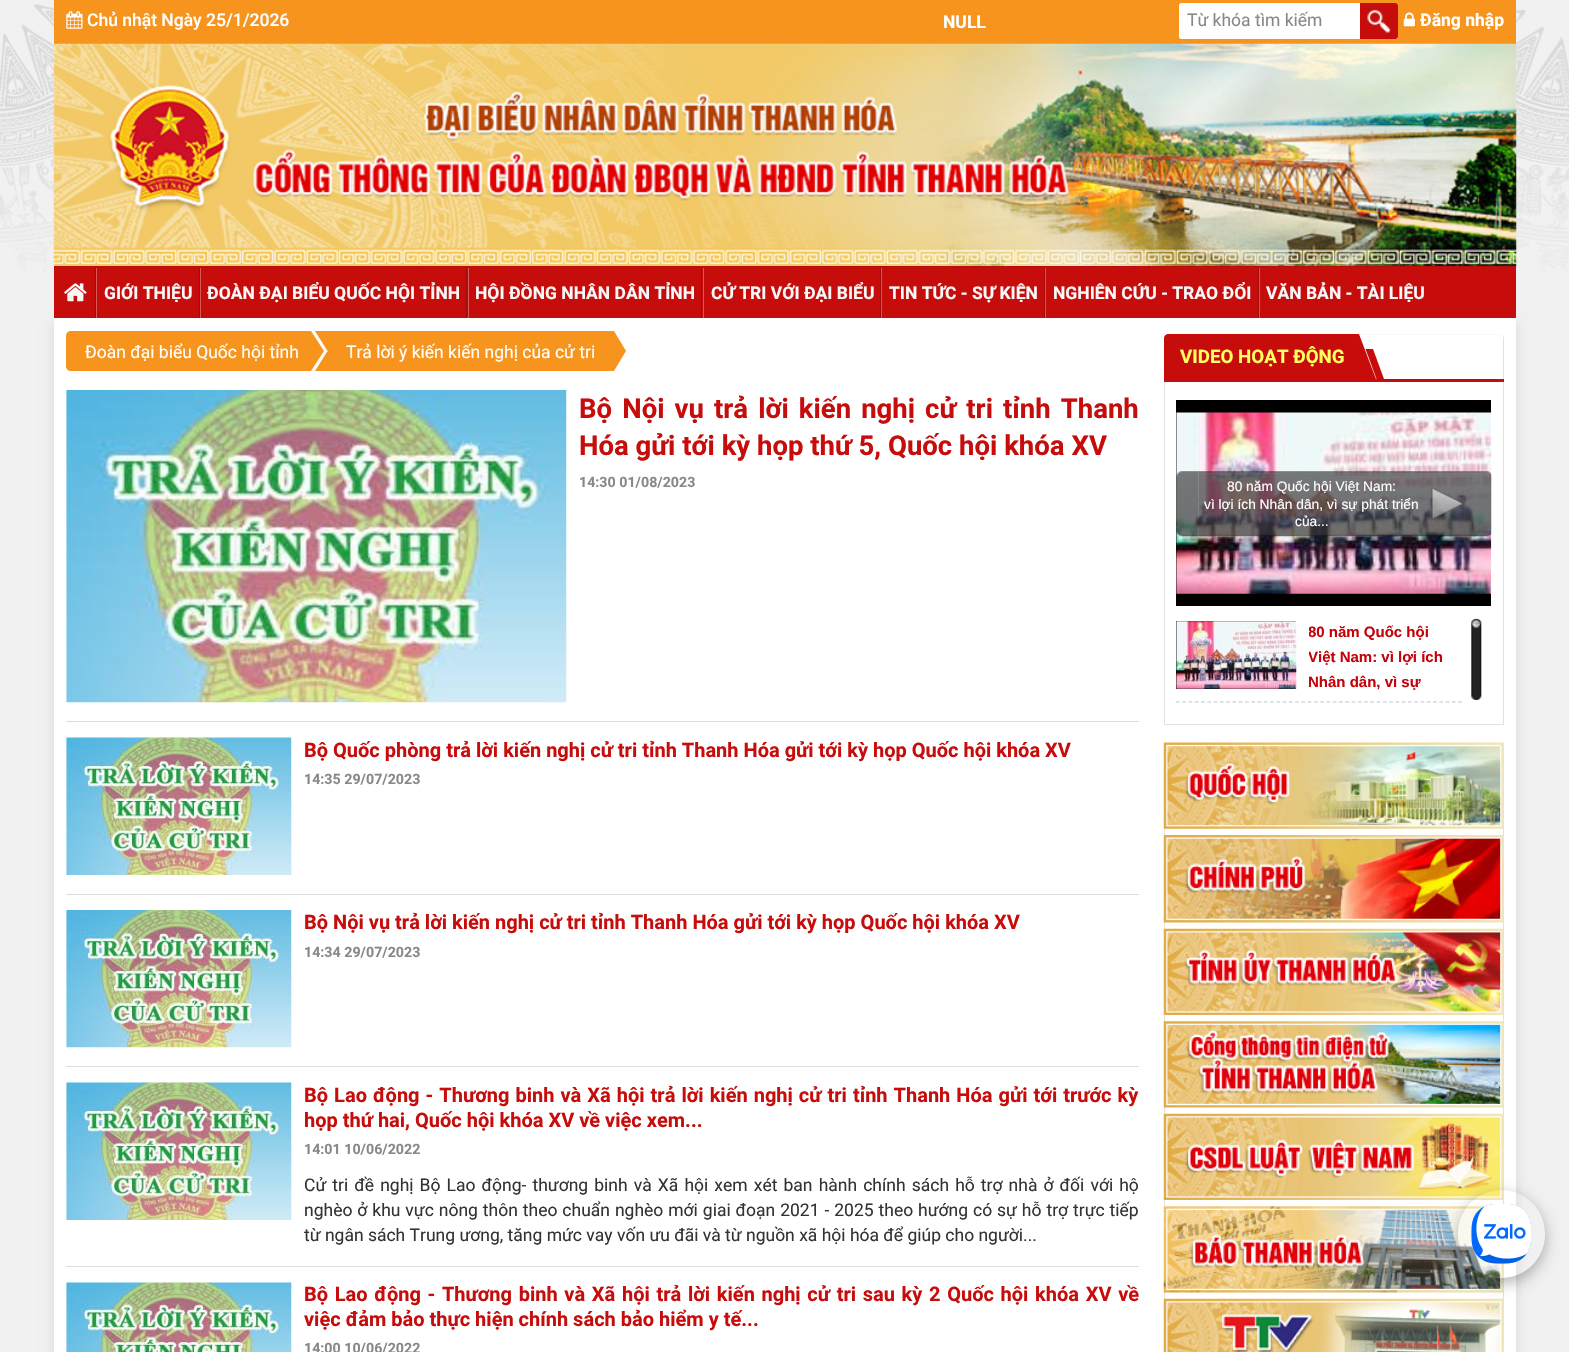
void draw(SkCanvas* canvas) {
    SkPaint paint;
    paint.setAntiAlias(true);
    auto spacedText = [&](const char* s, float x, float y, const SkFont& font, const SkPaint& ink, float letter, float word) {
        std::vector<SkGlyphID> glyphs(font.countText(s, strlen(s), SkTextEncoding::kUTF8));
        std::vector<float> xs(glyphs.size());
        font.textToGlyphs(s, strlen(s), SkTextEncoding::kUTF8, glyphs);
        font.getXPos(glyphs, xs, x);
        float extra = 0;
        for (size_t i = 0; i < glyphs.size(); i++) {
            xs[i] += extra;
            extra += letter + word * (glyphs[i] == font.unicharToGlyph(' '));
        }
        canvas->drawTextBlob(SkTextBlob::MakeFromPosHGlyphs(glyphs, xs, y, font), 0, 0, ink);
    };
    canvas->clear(0xFFF1F1F1);
    canvas->drawImageRect(SkImages::DeferredFromEncodedData(SkData::MakeFromFileName("img1.png")), SkRect::MakeXYWH(0, 4, 1569, 269), SkSamplingOptions());
    paint.setColor(0xFFF7941D);
    canvas->drawRect(SkRect::MakeXYWH(54, 0, 1462, 44), paint);
    canvas->drawImageRect(SkImages::DeferredFromEncodedData(SkData::MakeFromFileName("img2.png")), SkRect::MakeXYWH(66, 11, 17, 18), SkSamplingOptions());
    SkFont font1(fontMgr->matchFamilyStyle("Roboto", SkFontStyle(500, SkFontStyle::kNormal_Width, SkFontStyle::kUpright_Slant)), 17.5f);
    font1.setSubpixel(true);
    paint.setColor(0xFFFFFFFF);
    canvas->drawString("Chủ nhật Ngày 25/1/2026", 87, 26, font1, paint);
    SkFont font2(fontMgr->matchFamilyStyle("Roboto", SkFontStyle::Bold()), 17.5f);
    font2.setSubpixel(true);
    canvas->drawString("NULL", 943, 28, font2, paint);
    canvas->drawRoundRect(SkRect::MakeXYWH(1179, 3, 219, 36), 2.5f, 2.5f, paint);
    SkFont font3(fontMgr->matchFamilyStyle("Roboto", SkFontStyle::Normal()), 17.5f);
    font3.setSubpixel(true);
    paint.setColor(0xFF888888);
    canvas->drawString("Từ khóa tìm kiếm", 1187, 26, font3, paint);
    paint.setColor(0xFFC70D0C);
    canvas->drawPath(SkPathBuilder().moveTo(1360, 3).lineTo(1395.5f, 3).cubicTo(1397, 3, 1398, 4, 1398, 5.5f).lineTo(1398, 36.5f).cubicTo(1398, 38, 1397, 39, 1395.5f, 39).lineTo(1360, 39).close().detach(), paint);
    canvas->drawImageRect(SkImages::DeferredFromEncodedData(SkData::MakeFromFileName("img3.png")), SkRect::MakeXYWH(1367, 9, 24, 24), SkSamplingOptions());
    canvas->drawImageRect(SkImages::DeferredFromEncodedData(SkData::MakeFromFileName("img4.png")), SkRect::MakeXYWH(1403, 12, 12, 15), SkSamplingOptions());
    paint.setColor(0xFFFFFFFF);
    canvas->drawString("Đăng nhập", 1420, 26, font2, paint);
    canvas->drawImageRect(SkImages::DeferredFromEncodedData(SkData::MakeFromFileName("img5.png")), SkRect::MakeXYWH(53, 43, 1464, 224), SkSamplingOptions());
    paint.setColor(0x1A000000);
    paint.setMaskFilter(SkMaskFilter::MakeBlur(kNormal_SkBlurStyle, 6));
    canvas->drawRect(SkRect::MakeXYWH(54, 324, 1462, 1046), paint);
    paint.setMaskFilter(nullptr);
    paint.setColor(0xFFC70D0C);
    canvas->drawRect(SkRect::MakeXYWH(54, 267, 1462, 51), paint);
    paint.setColor(0xFFB70C0B);
    canvas->drawRect(SkRect::MakeXYWH(54, 266, 1462, 1), paint);
    paint.setColor(0xFF9F0A0A);
    canvas->drawRect(SkRect::MakeXYWH(95, 268, 1, 50), paint);
    canvas->drawImageRect(SkImages::DeferredFromEncodedData(SkData::MakeFromFileName("img6.png")), SkRect::MakeXYWH(64, 283, 23, 19), SkSamplingOptions());
    canvas->drawRect(SkRect::MakeXYWH(199, 268, 1, 50), paint);
    paint.setColor(0xFFD85655);
    canvas->drawRect(SkRect::MakeXYWH(96, 268, 1, 50), paint);
    paint.setColor(0xFFF8F8F8);
    canvas->drawString("GIỚI THIỆU", 104, 299, font2, paint);
    paint.setColor(0xFF9F0A0A);
    canvas->drawRect(SkRect::MakeXYWH(466, 268, 1, 50), paint);
    paint.setColor(0xFFD85655);
    canvas->drawRect(SkRect::MakeXYWH(200, 268, 1, 50), paint);
    paint.setColor(0xFFF8F8F8);
    canvas->drawString("ĐOÀN ĐẠI BIỂU QUỐC HỘI TỈNH", 207, 299, font2, paint);
    paint.setColor(0xFF9F0A0A);
    canvas->drawRect(SkRect::MakeXYWH(701, 268, 1, 50), paint);
    paint.setColor(0xFFD85655);
    canvas->drawRect(SkRect::MakeXYWH(468, 268, 1, 50), paint);
    paint.setColor(0xFFF8F8F8);
    canvas->drawString("HỘI ĐỒNG NHÂN DÂN TỈNH", 475, 299, font2, paint);
    paint.setColor(0xFF9F0A0A);
    canvas->drawRect(SkRect::MakeXYWH(880, 268, 1, 50), paint);
    paint.setColor(0xFFD85655);
    canvas->drawRect(SkRect::MakeXYWH(703, 268, 1, 50), paint);
    paint.setColor(0xFFF8F8F8);
    canvas->drawString("CỬ TRI VỚI ĐẠI BIỂU", 711, 299, font2, paint);
    paint.setColor(0xFF9F0A0A);
    canvas->drawRect(SkRect::MakeXYWH(1044, 268, 1, 50), paint);
    paint.setColor(0xFFD85655);
    canvas->drawRect(SkRect::MakeXYWH(881, 268, 1, 50), paint);
    paint.setColor(0xFFF8F8F8);
    canvas->drawString("TIN TỨC - SỰ KIỆN", 889, 299, font2, paint);
    paint.setColor(0xFF9F0A0A);
    canvas->drawRect(SkRect::MakeXYWH(1258, 268, 1, 50), paint);
    paint.setColor(0xFFD85655);
    canvas->drawRect(SkRect::MakeXYWH(1045, 268, 1, 50), paint);
    paint.setColor(0xFFF8F8F8);
    canvas->drawString("NGHIÊN CỨU - TRAO ĐỔI", 1053, 299, font2, paint);
    paint.setColor(0xFFD85655);
    canvas->drawRect(SkRect::MakeXYWH(1259, 268, 1, 50), paint);
    paint.setColor(0xFFF8F8F8);
    canvas->drawString("VĂN BẢN - TÀI LIỆU", 1266, 299, font2, paint);
    paint.setColor(0xFFFFFFFF);
    canvas->drawRect(SkRect::MakeXYWH(54, 318, 1462, 1034), paint);
    paint.setColor(0xFFF7941D);
    canvas->drawPath(SkPathBuilder().moveTo(71, 331).lineTo(311, 331).lineTo(311, 371).lineTo(71, 371).cubicTo(68, 371, 66, 369, 66, 366).lineTo(66, 336).cubicTo(66, 333, 68, 331, 71, 331).close().detach(), paint);
    paint.setColor(0xFFFFFFFF);
    canvas->drawString("Đoàn đại biểu Quốc hội tỉnh", 85, 358, font3, paint);
    paint.setColor(0xFFF7941D);
    canvas->drawPath(SkPathBuilder().moveTo(315, 331).lineTo(340, 331).lineTo(327.5f, 351).close().detach(), paint);
    canvas->drawRect(SkRect::MakeXYWH(328, 331, 12, 40), paint);
    canvas->drawPath(SkPathBuilder().moveTo(340, 371).lineTo(315, 371).lineTo(327.5f, 351).close().detach(), paint);
    canvas->drawPath(SkPathBuilder().moveTo(311, 371).lineTo(311, 331).lineTo(324, 351).close().detach(), paint);
    canvas->drawRect(SkRect::MakeXYWH(340, 331, 274, 40), paint);
    paint.setColor(0xFFFFFFFF);
    canvas->drawString("Trả lời ý kiến kiến nghị của cử tri", 346, 358, font3, paint);
    paint.setColor(0xFFF7941D);
    canvas->drawPath(SkPathBuilder().moveTo(614, 371).lineTo(614, 331).lineTo(626, 351).close().detach(), paint);
    canvas->drawImageRect(SkImages::DeferredFromEncodedData(SkData::MakeFromFileName("img7.png")), SkRect::MakeXYWH(66, 390, 501, 313), SkSamplingOptions());
    SkFont font4(fontMgr->matchFamilyStyle("Roboto", SkFontStyle::Bold()), 27.5f);
    font4.setSubpixel(true);
    paint.setColor(0xFFC70D0C);
    spacedText("Bộ Nội vụ trả lời kiến nghị cử tri tỉnh Thanh", 579, 418, font4, paint, 0, 3.25f);
    canvas->drawString("Hóa gửi tới kỳ họp thứ 5, Quốc hội khóa XV", 579, 455, font4, paint);
    SkFont font5(fontMgr->matchFamilyStyle("Roboto", SkFontStyle::Bold()), 14.25f);
    font5.setSubpixel(true);
    paint.setColor(0xFF888888);
    canvas->drawString("14:30 01/08/2023", 579, 487, font5, paint);
    paint.setColor(0xFFDDDDDD);
    canvas->drawRect(SkRect::MakeXYWH(66, 721, 1073, 1), paint);
    canvas->drawImageRect(SkImages::DeferredFromEncodedData(SkData::MakeFromFileName("img8.png")), SkRect::MakeXYWH(66, 737, 226, 138), SkSamplingOptions());
    SkFont font6(fontMgr->matchFamilyStyle("Roboto", SkFontStyle::Bold()), 20);
    font6.setSubpixel(true);
    paint.setColor(0xFFC70D0C);
    canvas->drawString("Bộ Quốc phòng trả lời kiến nghị cử tri tỉnh Thanh Hóa gửi tới kỳ họp Quốc hội khóa XV", 304, 757, font6, paint);
    paint.setColor(0xFF888888);
    canvas->drawString("14:35 29/07/2023", 304, 784, font5, paint);
    paint.setColor(0xFFDDDDDD);
    canvas->drawRect(SkRect::MakeXYWH(66, 894, 1073, 1), paint);
    canvas->drawImageRect(SkImages::DeferredFromEncodedData(SkData::MakeFromFileName("img9.png")), SkRect::MakeXYWH(66, 910, 226, 138), SkSamplingOptions());
    paint.setColor(0xFFC70D0C);
    canvas->drawString("Bộ Nội vụ trả lời kiến nghị cử tri tỉnh Thanh Hóa gửi tới kỳ họp Quốc hội khóa XV", 304, 929, font6, paint);
    paint.setColor(0xFF888888);
    canvas->drawString("14:34 29/07/2023", 304, 957, font5, paint);
    paint.setColor(0xFFDDDDDD);
    canvas->drawRect(SkRect::MakeXYWH(66, 1066, 1073, 1), paint);
    canvas->drawImageRect(SkImages::DeferredFromEncodedData(SkData::MakeFromFileName("img10.png")), SkRect::MakeXYWH(66, 1082, 226, 138), SkSamplingOptions());
    paint.setColor(0xFFC70D0C);
    spacedText("Bộ Lao động - Thương binh và Xã hội trả lời kiến nghị cử tri tỉnh Thanh Hóa gửi tới trước kỳ", 304, 1102, font6, paint, 0, 1.05f);
    canvas->drawString("họp thứ hai, Quốc hội khóa XV về việc xem...", 304, 1127, font6, paint);
    paint.setColor(0xFF888888);
    canvas->drawString("14:01 10/06/2022", 304, 1154, font5, paint);
    paint.setColor(0xFF333333);
    spacedText("Cử tri đề nghị Bộ Lao động- thương binh và Xã hội xem xét ban hành chính sách hỗ trợ nhà ở đối với hộ", 304, 1191, font3, paint, 0, 1.75f);
    spacedText("nghèo ở khu vực nông thôn theo chuẩn nghèo mới giai đoạn 2021 - 2025 theo hướng có sự hỗ trợ trực tiếp", 304, 1216, font3, paint, 0, 0.6f);
    canvas->drawString("từ ngân sách Trung ương, tăng mức vay vốn ưu đãi và từ nguồn xã hội hóa để giúp cho người...", 304, 1241, font3, paint);
    paint.setColor(0xFFDDDDDD);
    canvas->drawRect(SkRect::MakeXYWH(66, 1266, 1073, 1), paint);
    canvas->drawImageRect(SkImages::DeferredFromEncodedData(SkData::MakeFromFileName("img11.png")), SkRect::MakeXYWH(66, 1282, 226, 70), SkSamplingOptions());
    paint.setColor(0xFFC70D0C);
    spacedText("Bộ Lao động - Thương binh và Xã hội trả lời kiến nghị cử tri sau kỳ 2 Quốc hội khóa XV về", 304, 1301, font6, paint, 0, 1.7f);
    canvas->drawString("việc đảm bảo thực hiện chính sách bảo hiểm y tế...", 304, 1326, font6, paint);
    paint.setColor(0xFF888888);
    canvas->drawString("14:00 10/06/2022", 304, 1353, font5, paint);
    paint.setStyle(SkPaint::kStroke_Style);
    paint.setStrokeWidth(1);
    paint.setColor(0xFFE1E1E1);
    canvas->drawPath(SkPathBuilder().moveTo(1168, 334.5f).lineTo(1500, 334.5f).cubicTo(1502, 334.5f, 1503.5f, 336, 1503.5f, 338).lineTo(1503.5f, 724.5f).lineTo(1164.5f, 724.5f).lineTo(1164.5f, 338).cubicTo(1164.5f, 336, 1166, 334.5f, 1168, 334.5f).close().detach(), paint);
    paint.setStyle(SkPaint::kFill_Style);
    paint.setColor(0xCCFFFFFF);
    canvas->drawPath(SkPathBuilder().moveTo(1168, 335).lineTo(1500, 335).cubicTo(1502, 335, 1504, 337, 1504, 339).lineTo(1504, 338).cubicTo(1504, 336, 1502, 334, 1500, 334).lineTo(1168, 334).cubicTo(1166, 334, 1164, 336, 1164, 338).lineTo(1164, 339).cubicTo(1164, 337, 1165, 335, 1168, 335).close().detach(), paint);
    paint.setColor(0xFFC70D0C);
    canvas->drawRect(SkRect::MakeXYWH(1164, 379, 340, 3), paint);
    canvas->drawPath(SkPathBuilder().moveTo(1168, 334).lineTo(1358, 334).lineTo(1358, 379).lineTo(1164, 379).lineTo(1164, 338).cubicTo(1164, 336, 1166, 334, 1168, 334).close().detach(), paint);
    SkFont font7(fontMgr->matchFamilyStyle("Roboto", SkFontStyle::Bold()), 18.75f);
    font7.setSubpixel(true);
    paint.setColor(0xFFFFFF60);
    canvas->drawString("VIDEO HOẠT ĐỘNG", 1180, 363, font7, paint);
    paint.setColor(0xFFC70D0C);
    canvas->drawPath(SkPathBuilder().moveTo(1339, 334).lineTo(1359, 334).lineTo(1376, 379).lineTo(1356, 379).close().detach(), paint);
    canvas->drawPath(SkPathBuilder().moveTo(1365.5f, 349).lineTo(1373, 349).lineTo(1384, 379).lineTo(1376.5f, 379).close().detach(), paint);
    paint.setColor(0xFF000000);
    canvas->drawRect(SkRect::MakeXYWH(1176, 400, 315, 206), paint);
    canvas->drawImageRect(SkImages::DeferredFromEncodedData(SkData::MakeFromFileName("img12.png")), SkRect::MakeXYWH(1176, 412, 316, 182), SkSamplingOptions());
    canvas->drawImageRect(SkImages::DeferredFromEncodedData(SkData::MakeFromFileName("img13.png")), SkRect::MakeXYWH(1176, 471, 316, 66), SkSamplingOptions());
    SkFont font8(fontMgr->matchFamilyStyle("Liberation Sans", SkFontStyle::Normal()), 13.75f);
    font8.setSubpixel(true);
    paint.setColor(0xFFFFFFFF);
    canvas->drawString("80 năm Quốc hội Việt Nam:", 1227, 491, font8, paint);
    canvas->drawString("vì lợi ích Nhân dân, vì sự phát triển", 1204, 509, font8, paint);
    canvas->drawString("của...", 1295, 526, font8, paint);
    canvas->drawImageRect(SkImages::DeferredFromEncodedData(SkData::MakeFromFileName("img14.png")), SkRect::MakeXYWH(1431, 487, 32, 33), SkSamplingOptions());
    paint.setColor(0xFF000000);
    canvas->drawRect(SkRect::MakeXYWH(1176, 621, 120, 68), paint);
    canvas->drawImageRect(SkImages::DeferredFromEncodedData(SkData::MakeFromFileName("img15.png")), SkRect::MakeXYWH(1176, 621, 121, 68), SkSamplingOptions());
    canvas->save();
    canvas->clipRect(SkRect::MakeXYWH(1309, 619, 141, 82));
    SkFont font9(fontMgr->matchFamilyStyle("Liberation Sans", SkFontStyle::Bold()), 15);
    font9.setSubpixel(true);
    paint.setColor(0xFFC4020A);
    canvas->drawString("80 năm Quốc hội", 1308, 637, font9, paint);
    canvas->drawString("Việt Nam: vì lợi ích", 1308, 662, font9, paint);
    canvas->restore();
    canvas->drawString("Nhân dân, vì sự", 1308, 687, font9, paint);
    paint.setStyle(SkPaint::kStroke_Style);
    paint.setStrokeWidth(1.2f);
    paint.setColor(0xFFB7C6D2);
    paint.setPathEffect(SkDashPathEffect::Make({{3.75f, 2.52f}}, 0));
    canvas->drawPath(SkPathBuilder().moveTo(1176, 702).lineTo(1462.5f, 702).detach(), paint);
    paint.setPathEffect(nullptr);
    canvas->drawImageRect(SkImages::DeferredFromEncodedData(SkData::MakeFromFileName("img16.png")), SkRect::MakeXYWH(1471, 618, 11, 6), SkSamplingOptions());
    canvas->drawImageRect(SkImages::DeferredFromEncodedData(SkData::MakeFromFileName("img17.png")), SkRect::MakeXYWH(1471, 623, 11, 72), SkSamplingOptions());
    canvas->drawImageRect(SkImages::DeferredFromEncodedData(SkData::MakeFromFileName("img18.png")), SkRect::MakeXYWH(1471, 695, 11, 5), SkSamplingOptions());
    canvas->drawImageRect(SkImages::DeferredFromEncodedData(SkData::MakeFromFileName("img19.png")), SkRect::MakeXYWH(1472, 619, 9, 5), SkSamplingOptions());
    canvas->drawImageRect(SkImages::DeferredFromEncodedData(SkData::MakeFromFileName("img20.png")), SkRect::MakeXYWH(1472, 623, 9, 5), SkSamplingOptions());
    paint.setStrokeWidth(1);
    paint.setColor(0xFFE1E1E1);
    canvas->drawPath(SkPathBuilder().moveTo(1168, 743.5f).lineTo(1500, 743.5f).cubicTo(1502, 743.5f, 1503.5f, 745, 1503.5f, 747).lineTo(1503.5f, 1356.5f).lineTo(1164.5f, 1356.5f).lineTo(1164.5f, 747).cubicTo(1164.5f, 745, 1166, 743.5f, 1168, 743.5f).close().detach(), paint);
    canvas->drawImageRect(SkImages::DeferredFromEncodedData(SkData::MakeFromFileName("img21.png")), SkRect::MakeXYWH(1163, 742, 341, 87), SkSamplingOptions());
    canvas->drawImageRect(SkImages::DeferredFromEncodedData(SkData::MakeFromFileName("img22.png")), SkRect::MakeXYWH(1163, 835, 341, 88), SkSamplingOptions());
    canvas->drawImageRect(SkImages::DeferredFromEncodedData(SkData::MakeFromFileName("img23.png")), SkRect::MakeXYWH(1163, 928, 341, 87), SkSamplingOptions());
    canvas->drawImageRect(SkImages::DeferredFromEncodedData(SkData::MakeFromFileName("img24.png")), SkRect::MakeXYWH(1163, 1021, 341, 87), SkSamplingOptions());
    canvas->drawImageRect(SkImages::DeferredFromEncodedData(SkData::MakeFromFileName("img25.png")), SkRect::MakeXYWH(1163, 1113, 341, 87), SkSamplingOptions());
    canvas->drawImageRect(SkImages::DeferredFromEncodedData(SkData::MakeFromFileName("img26.png")), SkRect::MakeXYWH(1163, 1206, 341, 87), SkSamplingOptions());
    canvas->drawImageRect(SkImages::DeferredFromEncodedData(SkData::MakeFromFileName("img27.png")), SkRect::MakeXYWH(1163, 1298, 341, 54), SkSamplingOptions());
    canvas->save();
    canvas->clipPath(SkPathBuilder(SkPathFillType::kEvenOdd).moveTo(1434, 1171).lineTo(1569, 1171).lineTo(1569, 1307).lineTo(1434, 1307).close().moveTo(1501.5f, 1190).cubicTo(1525.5f, 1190, 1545, 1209.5f, 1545, 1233.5f).lineTo(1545, 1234.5f).cubicTo(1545, 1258.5f, 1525.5f, 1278, 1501.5f, 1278).cubicTo(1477.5f, 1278, 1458, 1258.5f, 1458, 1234.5f).lineTo(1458, 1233.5f).cubicTo(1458, 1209.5f, 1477.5f, 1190, 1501.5f, 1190).close().detach(), true);
    paint.setStyle(SkPaint::kFill_Style);
    paint.setColor(0x4D000000);
    paint.setMaskFilter(SkMaskFilter::MakeBlur(kNormal_SkBlurStyle, 7.5f));
    canvas->drawRoundRect(SkRect::MakeXYWH(1458, 1195, 87, 88), 43.5f, 43.5f, paint);
    paint.setMaskFilter(nullptr);
    canvas->restore();
    canvas->drawImageRect(SkImages::DeferredFromEncodedData(SkData::MakeFromFileName("img28.png")), SkRect::MakeXYWH(1471, 1204, 60, 60), SkSamplingOptions());
}
